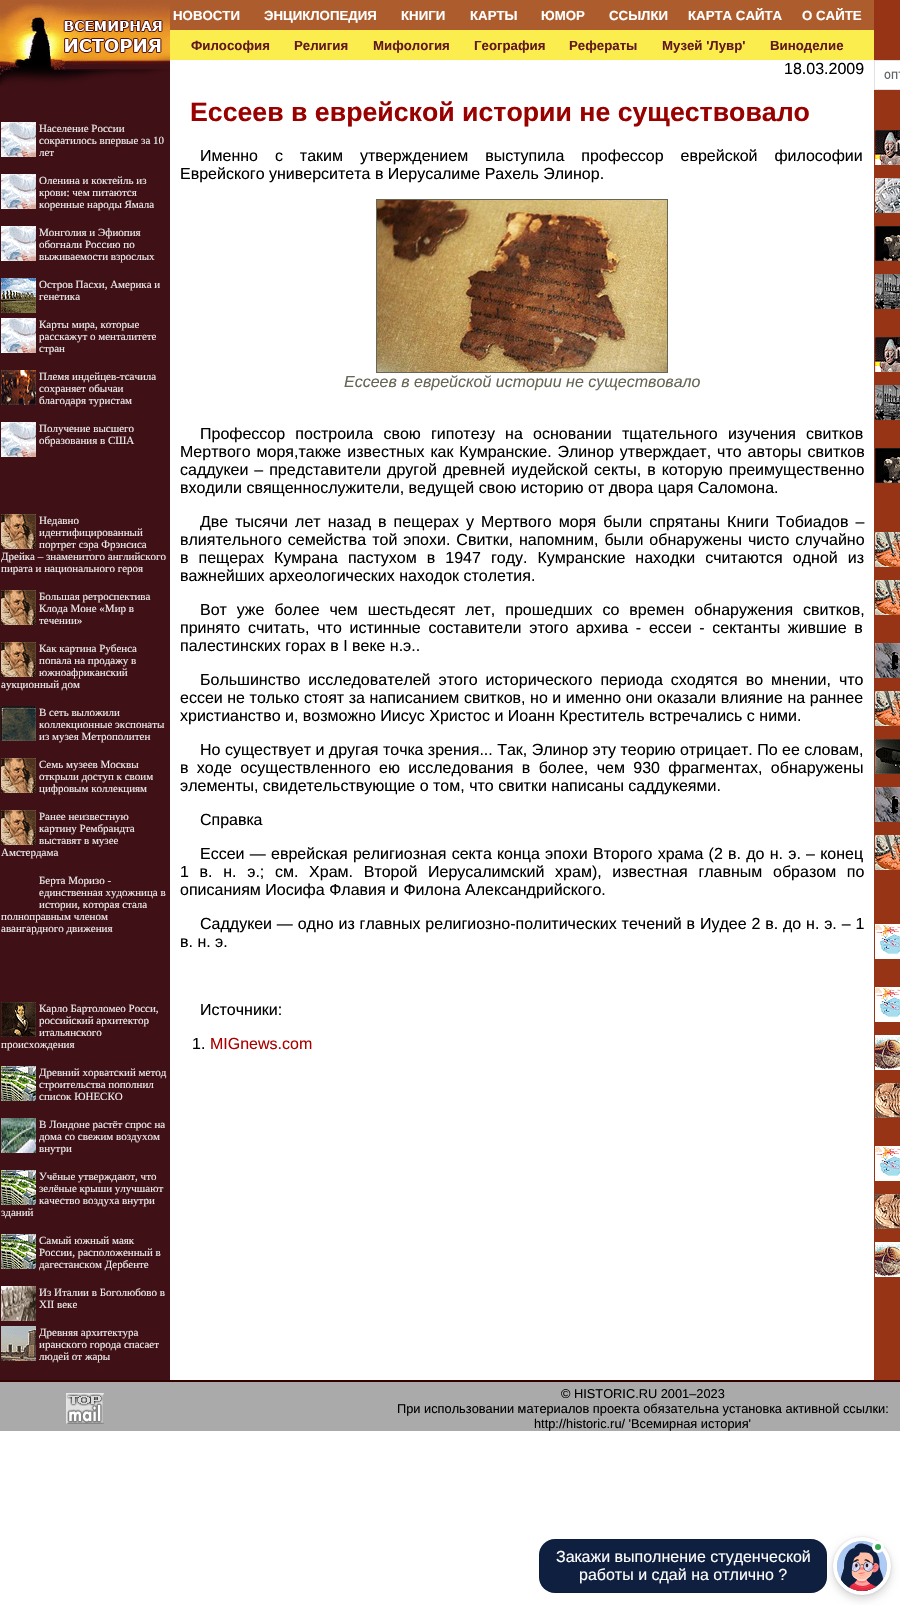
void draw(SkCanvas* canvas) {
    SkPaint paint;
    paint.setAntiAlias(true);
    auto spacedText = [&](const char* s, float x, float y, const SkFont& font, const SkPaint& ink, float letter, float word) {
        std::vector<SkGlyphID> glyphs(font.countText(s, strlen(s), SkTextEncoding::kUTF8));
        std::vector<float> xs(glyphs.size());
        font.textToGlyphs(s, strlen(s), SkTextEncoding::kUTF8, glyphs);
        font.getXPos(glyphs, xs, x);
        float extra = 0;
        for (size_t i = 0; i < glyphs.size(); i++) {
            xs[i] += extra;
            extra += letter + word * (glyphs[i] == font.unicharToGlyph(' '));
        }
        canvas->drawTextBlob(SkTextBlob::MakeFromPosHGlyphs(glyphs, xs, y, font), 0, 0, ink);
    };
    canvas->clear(0xFFFFFFFF);
    paint.setColor(0xFFAD5D2D);
    canvas->drawRect(SkRect::MakeXYWH(0, 0, 170, 3), paint);
    canvas->drawImageRect(SkImages::DeferredFromEncodedData(SkData::MakeFromFileName("img1.png")), SkRect::MakeXYWH(0, 3, 170, 27), SkSamplingOptions());
    canvas->drawRect(SkRect::MakeXYWH(170, 0, 704, 30), paint);
    SkFont font1(fontMgr->matchFamilyStyle("Liberation Sans", SkFontStyle::Bold()), 13.25f);
    font1.setSubpixel(true);
    paint.setColor(0xFFFFFFFF);
    canvas->drawString("НОВОСТИ", 173, 20, font1, paint);
    canvas->drawString("ЭНЦИКЛОПЕДИЯ", 264, 20, font1, paint);
    canvas->drawString("КНИГИ", 401, 20, font1, paint);
    canvas->drawString("КАРТЫ", 470, 20, font1, paint);
    canvas->drawString("ЮМОР", 541, 20, font1, paint);
    canvas->drawString("ССЫЛКИ", 609, 20, font1, paint);
    canvas->drawString("КАРТА САЙТА", 688, 20, font1, paint);
    canvas->drawString("О САЙТЕ", 802, 20, font1, paint);
    paint.setColor(0xFF963415);
    canvas->drawRect(SkRect::MakeXYWH(874, 0, 26, 60), paint);
    canvas->drawImageRect(SkImages::DeferredFromEncodedData(SkData::MakeFromFileName("img2.png")), SkRect::MakeXYWH(0, 30, 170, 30), SkSamplingOptions());
    paint.setColor(0xFFFBED4E);
    canvas->drawRect(SkRect::MakeXYWH(170, 30, 704, 30), paint);
    paint.setColor(0xFF631921);
    canvas->drawString("Философия", 191, 50, font1, paint);
    canvas->drawString("Религия", 294, 50, font1, paint);
    canvas->drawString("Мифология", 373, 50, font1, paint);
    canvas->drawString("География", 474, 50, font1, paint);
    canvas->drawString("Рефераты", 569, 50, font1, paint);
    canvas->drawString("Музей 'Лувр'", 662, 50, font1, paint);
    canvas->drawString("Виноделие", 770, 50, font1, paint);
    paint.setColor(0xFF3F1015);
    canvas->drawRect(SkRect::MakeXYWH(0, 86, 170, 1294), paint);
    canvas->drawImageRect(SkImages::DeferredFromEncodedData(SkData::MakeFromFileName("img3.png")), SkRect::MakeXYWH(0, 60, 170, 26), SkSamplingOptions());
    canvas->drawImageRect(SkImages::DeferredFromEncodedData(SkData::MakeFromFileName("img4.png")), SkRect::MakeXYWH(1, 122, 35, 35), SkSamplingOptions());
    SkFont font2(fontMgr->matchFamilyStyle("Liberation Serif", SkFontStyle::Normal()), 11);
    font2.setSubpixel(true);
    paint.setColor(0xFFEEEEEE);
    canvas->drawString("Население России", 39, 132, font2, paint);
    canvas->drawString("сократилось впервые за 10", 39, 144, font2, paint);
    canvas->drawString("лет", 39, 156, font2, paint);
    canvas->drawImageRect(SkImages::DeferredFromEncodedData(SkData::MakeFromFileName("img4.png")), SkRect::MakeXYWH(1, 174, 35, 35), SkSamplingOptions());
    canvas->drawString("Оленина и коктейль из", 39, 184, font2, paint);
    canvas->drawString("крови: чем питаются", 39, 196, font2, paint);
    canvas->drawString("коренные народы Ямала", 39, 208, font2, paint);
    canvas->drawImageRect(SkImages::DeferredFromEncodedData(SkData::MakeFromFileName("img4.png")), SkRect::MakeXYWH(1, 226, 35, 35), SkSamplingOptions());
    canvas->drawString("Монголия и Эфиопия", 39, 236, font2, paint);
    canvas->drawString("обогнали Россию по", 39, 248, font2, paint);
    canvas->drawString("выживаемости взрослых", 39, 260, font2, paint);
    canvas->drawImageRect(SkImages::DeferredFromEncodedData(SkData::MakeFromFileName("img5.png")), SkRect::MakeXYWH(1, 278, 35, 35), SkSamplingOptions());
    canvas->drawString("Остров Пасхи, Америка и", 39, 288, font2, paint);
    canvas->drawString("генетика", 39, 300, font2, paint);
    canvas->drawImageRect(SkImages::DeferredFromEncodedData(SkData::MakeFromFileName("img4.png")), SkRect::MakeXYWH(1, 318, 35, 35), SkSamplingOptions());
    canvas->drawString("Карты мира, которые", 39, 328, font2, paint);
    canvas->drawString("расскажут о менталитете", 39, 340, font2, paint);
    canvas->drawString("стран", 39, 352, font2, paint);
    canvas->drawImageRect(SkImages::DeferredFromEncodedData(SkData::MakeFromFileName("img6.png")), SkRect::MakeXYWH(1, 370, 35, 35), SkSamplingOptions());
    canvas->drawString("Племя индейцев-тсачила", 39, 380, font2, paint);
    canvas->drawString("сохраняет обычаи", 39, 392, font2, paint);
    canvas->drawString("благодаря туристам", 39, 404, font2, paint);
    canvas->drawImageRect(SkImages::DeferredFromEncodedData(SkData::MakeFromFileName("img4.png")), SkRect::MakeXYWH(1, 422, 35, 35), SkSamplingOptions());
    canvas->drawString("Получение высшего", 39, 432, font2, paint);
    canvas->drawString("образования в США", 39, 444, font2, paint);
    canvas->drawImageRect(SkImages::DeferredFromEncodedData(SkData::MakeFromFileName("img7.png")), SkRect::MakeXYWH(1, 514, 35, 35), SkSamplingOptions());
    canvas->drawString("Недавно", 39, 524, font2, paint);
    canvas->drawString("идентифицированный", 39, 536, font2, paint);
    canvas->drawString("портрет сэра Фрэнсиса", 39, 548, font2, paint);
    canvas->drawString("Дрейка – знаменитого английского", 1, 560, font2, paint);
    canvas->drawString("пирата и национального героя", 1, 572, font2, paint);
    canvas->drawImageRect(SkImages::DeferredFromEncodedData(SkData::MakeFromFileName("img7.png")), SkRect::MakeXYWH(1, 590, 35, 35), SkSamplingOptions());
    canvas->drawString("Большая ретроспектива", 39, 600, font2, paint);
    canvas->drawString("Клода Моне «Мир в", 39, 612, font2, paint);
    canvas->drawString("течении»", 39, 624, font2, paint);
    canvas->drawImageRect(SkImages::DeferredFromEncodedData(SkData::MakeFromFileName("img7.png")), SkRect::MakeXYWH(1, 642, 35, 35), SkSamplingOptions());
    canvas->drawString("Как картина Рубенса", 39, 652, font2, paint);
    canvas->drawString("попала на продажу в", 39, 664, font2, paint);
    canvas->drawString("южноафриканский", 39, 676, font2, paint);
    canvas->drawString("аукционный дом", 1, 688, font2, paint);
    canvas->drawImageRect(SkImages::DeferredFromEncodedData(SkData::MakeFromFileName("img8.png")), SkRect::MakeXYWH(1, 706, 35, 35), SkSamplingOptions());
    canvas->drawString("В сеть выложили", 39, 716, font2, paint);
    canvas->drawString("коллекционные экспонаты", 39, 728, font2, paint);
    canvas->drawString("из музея Метрополитен", 39, 740, font2, paint);
    canvas->drawImageRect(SkImages::DeferredFromEncodedData(SkData::MakeFromFileName("img7.png")), SkRect::MakeXYWH(1, 758, 35, 35), SkSamplingOptions());
    canvas->drawString("Семь музеев Москвы", 39, 768, font2, paint);
    canvas->drawString("открыли доступ к своим", 39, 780, font2, paint);
    canvas->drawString("цифровым коллекциям", 39, 792, font2, paint);
    canvas->drawImageRect(SkImages::DeferredFromEncodedData(SkData::MakeFromFileName("img7.png")), SkRect::MakeXYWH(1, 810, 35, 35), SkSamplingOptions());
    canvas->drawString("Ранее неизвестную", 39, 820, font2, paint);
    canvas->drawString("картину Рембрандта", 39, 832, font2, paint);
    canvas->drawString("выставят в музее", 39, 844, font2, paint);
    canvas->drawString("Амстердама", 1, 856, font2, paint);
    canvas->drawString("Берта Моризо -", 39, 884, font2, paint);
    canvas->drawString("единственная художница в", 39, 896, font2, paint);
    canvas->drawString("истории, которая стала", 39, 908, font2, paint);
    canvas->drawString("полноправным членом", 1, 920, font2, paint);
    canvas->drawString("авангардного движения", 1, 932, font2, paint);
    canvas->drawImageRect(SkImages::DeferredFromEncodedData(SkData::MakeFromFileName("img9.png")), SkRect::MakeXYWH(1, 1002, 35, 35), SkSamplingOptions());
    canvas->drawString("Карло Бартоломео Росси,", 39, 1012, font2, paint);
    canvas->drawString("российский архитектор", 39, 1024, font2, paint);
    canvas->drawString("итальянского", 39, 1036, font2, paint);
    canvas->drawString("происхождения", 1, 1048, font2, paint);
    canvas->drawImageRect(SkImages::DeferredFromEncodedData(SkData::MakeFromFileName("img10.png")), SkRect::MakeXYWH(1, 1066, 35, 35), SkSamplingOptions());
    canvas->drawString("Древний хорватский метод", 39, 1076, font2, paint);
    canvas->drawString("строительства пополнил", 39, 1088, font2, paint);
    canvas->drawString("список ЮНЕСКО", 39, 1100, font2, paint);
    canvas->drawImageRect(SkImages::DeferredFromEncodedData(SkData::MakeFromFileName("img11.png")), SkRect::MakeXYWH(1, 1118, 35, 35), SkSamplingOptions());
    canvas->drawString("В Лондоне растёт спрос на", 39, 1128, font2, paint);
    canvas->drawString("дома со свежим воздухом", 39, 1140, font2, paint);
    canvas->drawString("внутри", 39, 1152, font2, paint);
    canvas->drawImageRect(SkImages::DeferredFromEncodedData(SkData::MakeFromFileName("img10.png")), SkRect::MakeXYWH(1, 1170, 35, 35), SkSamplingOptions());
    canvas->drawString("Учёные утверждают, что", 39, 1180, font2, paint);
    canvas->drawString("зелёные крыши улучшают", 39, 1192, font2, paint);
    canvas->drawString("качество воздуха внутри", 39, 1204, font2, paint);
    canvas->drawString("зданий", 1, 1216, font2, paint);
    canvas->drawImageRect(SkImages::DeferredFromEncodedData(SkData::MakeFromFileName("img10.png")), SkRect::MakeXYWH(1, 1234, 35, 35), SkSamplingOptions());
    canvas->drawString("Самый южный маяк", 39, 1244, font2, paint);
    canvas->drawString("России, расположенный в", 39, 1256, font2, paint);
    canvas->drawString("дагестанском Дербенте", 39, 1268, font2, paint);
    canvas->drawImageRect(SkImages::DeferredFromEncodedData(SkData::MakeFromFileName("img12.png")), SkRect::MakeXYWH(1, 1286, 35, 35), SkSamplingOptions());
    canvas->drawString("Из Италии в Боголюбово в", 39, 1296, font2, paint);
    canvas->drawString("XII веке", 39, 1308, font2, paint);
    canvas->drawImageRect(SkImages::DeferredFromEncodedData(SkData::MakeFromFileName("img13.png")), SkRect::MakeXYWH(1, 1326, 35, 35), SkSamplingOptions());
    canvas->drawString("Древняя архитектура", 39, 1336, font2, paint);
    canvas->drawString("иранского города спасает", 39, 1348, font2, paint);
    canvas->drawString("людей от жары", 39, 1360, font2, paint);
    SkFont font3(fontMgr->matchFamilyStyle("Liberation Sans", SkFontStyle::Normal()), 16);
    font3.setSubpixel(true);
    paint.setColor(0xFF000000);
    canvas->drawString("18.03.2009", 784, 74, font3, paint);
    SkFont font4(fontMgr->matchFamilyStyle("Liberation Sans", SkFontStyle::Bold()), 26.7f);
    font4.setSubpixel(true);
    paint.setColor(0xFF990000);
    canvas->drawString("Ессеев в еврейской истории не существовало", 190, 121, font4, paint);
    paint.setColor(0xFF000000);
    spacedText("Именно с таким утверждением выступила профессор еврейской философии", 200, 161, font3, paint, 0, 12.5f);
    canvas->drawString("Еврейского университета в Иерусалиме Рахель Элинор.", 180, 179, font3, paint);
    paint.setStyle(SkPaint::kStroke_Style);
    paint.setStrokeWidth(1);
    paint.setColor(0xFF666655);
    canvas->drawRect(SkRect::MakeXYWH(376.5f, 199.5f, 291, 173), paint);
    canvas->drawImageRect(SkImages::DeferredFromEncodedData(SkData::MakeFromFileName("img14.png")), SkRect::MakeXYWH(377, 200, 290, 172), SkSamplingOptions());
    SkFont font5(fontMgr->matchFamilyStyle("Liberation Sans", SkFontStyle::Italic()), 16);
    font5.setSubpixel(true);
    paint.setStyle(SkPaint::kFill_Style);
    canvas->drawString("Ессеев в еврейской истории не существовало", 344, 387, font5, paint);
    paint.setColor(0xFF000000);
    spacedText("Профессор построила свою гипотезу на основании тщательного изучения свитков", 200, 439, font3, paint, 0, 5.75f);
    spacedText("Мертвого моря,также известных как Кумранские. Элинор утверждает, что авторы свитков", 180, 457, font3, paint, 0, 1.5f);
    spacedText("саддукеи – представители другой древней иудейской секты, в которую преимущественно", 180, 475, font3, paint, 0, 1.5f);
    canvas->drawString("входили священнослужители, ведущей свою историю от двора царя Саломона.", 180, 493, font3, paint);
    spacedText("Две тысячи лет назад в пещерах у Мертвого моря были спрятаны Книги Тобиадов –", 200, 527, font3, paint, 0, 2.6f);
    spacedText("влиятельного семейства той эпохи. Свитки, напомним, были обнаружены чисто случайно", 180, 545, font3, paint, 0, 1.5f);
    spacedText("в пещерах Кумрана пастухом в 1947 году. Кумранские находки считаются одной из", 180, 563, font3, paint, 0, 5.6f);
    canvas->drawString("важнейших археологических находок столетия.", 180, 581, font3, paint);
    spacedText("Вот уже более чем шестьдесят лет, прошедших со времен обнаружения свитков,", 200, 615, font3, paint, 0, 5.5f);
    spacedText("принято считать, что истинные составители этого архива - ессеи - сектанты жившие в", 180, 633, font3, paint, 0, 3.25f);
    canvas->drawString("палестинских горах в I веке н.э..", 180, 651, font3, paint);
    spacedText("Большинство исследователей этого исторического периода сходятся во мнении, что", 200, 685, font3, paint, 0, 3.5f);
    spacedText("ессеи не только стоят за написанием свитков, но и именно они оказали влияние на раннее", 180, 703, font3, paint, 0, 0.1f);
    canvas->drawString("христианство и, возможно Иисус Христос и Иоанн Креститель встречались с ними.", 180, 721, font3, paint);
    canvas->drawString("Но существует и другая точка зрения... Так, Элинор эту теорию отрицает. По ее словам,", 200, 755, font3, paint);
    spacedText("в ходе осуществленного ею исследования в более, чем 930 фрагментах, обнаружены", 180, 773, font3, paint, 0, 3.9f);
    canvas->drawString("элементы, свидетельствующие о том, что свитки написаны саддукеями.", 180, 791, font3, paint);
    canvas->drawString("Справка", 200, 825, font3, paint);
    spacedText("Ессеи — еврейская религиозная секта конца эпохи Второго храма (2 в. до н. э. – конец", 200, 859, font3, paint, 0, 0.8f);
    spacedText("1 в. н. э.; см. Храм. Второй Иерусалимский храм), известная главным образом по", 180, 877, font3, paint, 0, 6.25f);
    canvas->drawString("описаниям Иосифа Флавия и Филона Александрийского.", 180, 895, font3, paint);
    spacedText("Саддукеи — одно из главных религиозно-политических течений в Иудее 2 в. до н. э. – 1", 200, 929, font3, paint, 0, 0.4f);
    canvas->drawString("в. н. э.", 180, 947, font3, paint);
    canvas->drawString("Источники:", 200, 1015, font3, paint);
    canvas->drawString("1.", 192, 1049, font3, paint);
    paint.setColor(0xFFAA0000);
    canvas->drawString("MIGnews.com", 210, 1049, font3, paint);
    paint.setColor(0xFF963415);
    canvas->drawRect(SkRect::MakeXYWH(874, 90, 26, 1290), paint);
    paint.setStyle(SkPaint::kStroke_Style);
    paint.setColor(0xFFDFE1E5);
    canvas->drawRect(SkRect::MakeXYWH(874.5f, 60.5f, 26, 29), paint);
    canvas->drawImageRect(SkImages::DeferredFromEncodedData(SkData::MakeFromFileName("img15.png")), SkRect::MakeXYWH(884, 71, 16, 8), SkSamplingOptions());
    canvas->drawImageRect(SkImages::DeferredFromEncodedData(SkData::MakeFromFileName("img16.png")), SkRect::MakeXYWH(875, 130, 25, 35), SkSamplingOptions());
    canvas->drawImageRect(SkImages::DeferredFromEncodedData(SkData::MakeFromFileName("img17.png")), SkRect::MakeXYWH(875, 178, 25, 35), SkSamplingOptions());
    canvas->drawImageRect(SkImages::DeferredFromEncodedData(SkData::MakeFromFileName("img18.png")), SkRect::MakeXYWH(875, 226, 25, 35), SkSamplingOptions());
    canvas->drawImageRect(SkImages::DeferredFromEncodedData(SkData::MakeFromFileName("img19.png")), SkRect::MakeXYWH(875, 274, 25, 35), SkSamplingOptions());
    canvas->drawImageRect(SkImages::DeferredFromEncodedData(SkData::MakeFromFileName("img16.png")), SkRect::MakeXYWH(875, 337, 25, 35), SkSamplingOptions());
    canvas->drawImageRect(SkImages::DeferredFromEncodedData(SkData::MakeFromFileName("img19.png")), SkRect::MakeXYWH(875, 385, 25, 35), SkSamplingOptions());
    canvas->drawImageRect(SkImages::DeferredFromEncodedData(SkData::MakeFromFileName("img18.png")), SkRect::MakeXYWH(875, 448, 25, 35), SkSamplingOptions());
    canvas->drawImageRect(SkImages::DeferredFromEncodedData(SkData::MakeFromFileName("img20.png")), SkRect::MakeXYWH(875, 532, 25, 35), SkSamplingOptions());
    canvas->drawImageRect(SkImages::DeferredFromEncodedData(SkData::MakeFromFileName("img20.png")), SkRect::MakeXYWH(875, 580, 25, 35), SkSamplingOptions());
    canvas->drawImageRect(SkImages::DeferredFromEncodedData(SkData::MakeFromFileName("img21.png")), SkRect::MakeXYWH(875, 643, 25, 35), SkSamplingOptions());
    canvas->drawImageRect(SkImages::DeferredFromEncodedData(SkData::MakeFromFileName("img20.png")), SkRect::MakeXYWH(875, 691, 25, 35), SkSamplingOptions());
    canvas->drawImageRect(SkImages::DeferredFromEncodedData(SkData::MakeFromFileName("img22.png")), SkRect::MakeXYWH(875, 739, 25, 35), SkSamplingOptions());
    canvas->drawImageRect(SkImages::DeferredFromEncodedData(SkData::MakeFromFileName("img21.png")), SkRect::MakeXYWH(875, 787, 25, 35), SkSamplingOptions());
    canvas->drawImageRect(SkImages::DeferredFromEncodedData(SkData::MakeFromFileName("img20.png")), SkRect::MakeXYWH(875, 835, 25, 35), SkSamplingOptions());
    canvas->drawImageRect(SkImages::DeferredFromEncodedData(SkData::MakeFromFileName("img23.png")), SkRect::MakeXYWH(875, 924, 25, 35), SkSamplingOptions());
    canvas->drawImageRect(SkImages::DeferredFromEncodedData(SkData::MakeFromFileName("img23.png")), SkRect::MakeXYWH(875, 987, 25, 35), SkSamplingOptions());
    canvas->drawImageRect(SkImages::DeferredFromEncodedData(SkData::MakeFromFileName("img24.png")), SkRect::MakeXYWH(875, 1035, 25, 35), SkSamplingOptions());
    canvas->drawImageRect(SkImages::DeferredFromEncodedData(SkData::MakeFromFileName("img25.png")), SkRect::MakeXYWH(875, 1083, 25, 35), SkSamplingOptions());
    canvas->drawImageRect(SkImages::DeferredFromEncodedData(SkData::MakeFromFileName("img23.png")), SkRect::MakeXYWH(875, 1146, 25, 35), SkSamplingOptions());
    canvas->drawImageRect(SkImages::DeferredFromEncodedData(SkData::MakeFromFileName("img25.png")), SkRect::MakeXYWH(875, 1194, 25, 35), SkSamplingOptions());
    canvas->drawImageRect(SkImages::DeferredFromEncodedData(SkData::MakeFromFileName("img24.png")), SkRect::MakeXYWH(875, 1242, 25, 35), SkSamplingOptions());
    paint.setStyle(SkPaint::kFill_Style);
    paint.setColor(0xFF330000);
    canvas->drawRect(SkRect::MakeXYWH(0, 1380, 900, 2), paint);
    paint.setColor(0xFFAAAAAA);
    canvas->drawRect(SkRect::MakeXYWH(0, 1382, 900, 4), paint);
    canvas->drawRect(SkRect::MakeXYWH(0, 1386, 900, 45), paint);
    canvas->drawImageRect(SkImages::DeferredFromEncodedData(SkData::MakeFromFileName("img26.png")), SkRect::MakeXYWH(66, 1393, 38, 31), SkSamplingOptions());
    SkFont font6(fontMgr->matchFamilyStyle("Liberation Sans", SkFontStyle::Normal()), 12.8f);
    font6.setSubpixel(true);
    paint.setColor(0xFF000000);
    canvas->drawString("© HISTORIC.RU 2001–2023", 561, 1398, font6, paint);
    canvas->drawString("При использовании материалов проекта обязательна установка активной ссылки:", 397, 1413, font6, paint);
    canvas->drawString("http://historic.ru/ 'Всемирная история'", 534, 1428, font6, paint);
    paint.setColor(0x29000000);
    paint.setMaskFilter(SkMaskFilter::MakeBlur(kNormal_SkBlurStyle, 4));
    canvas->drawRoundRect(SkRect::MakeXYWH(833, 1541, 58, 58), 29, 29, paint);
    paint.setMaskFilter(nullptr);
    paint.setColor(0xFF0E1F40);
    canvas->drawRoundRect(SkRect::MakeXYWH(539, 1539, 288, 54), 16, 16, paint);
    paint.setStyle(SkPaint::kStroke_Style);
    paint.setColor(0x1A000000);
    canvas->drawRoundRect(SkRect::MakeXYWH(539.5f, 1539.5f, 287, 53), 15.5f, 15.5f, paint);
    paint.setStyle(SkPaint::kFill_Style);
    paint.setColor(0xFFFFFFFF);
    canvas->drawString("Закажи выполнение студенческой", 556, 1562, font3, paint);
    canvas->drawString("работы и сдай на отлично ?", 579, 1580, font3, paint);
    paint.setColor(0x29000000);
    paint.setMaskFilter(SkMaskFilter::MakeBlur(kNormal_SkBlurStyle, 1));
    canvas->drawRoundRect(SkRect::MakeXYWH(833, 1537, 58, 58), 29, 29, paint);
    paint.setMaskFilter(nullptr);
    paint.setStyle(SkPaint::kStroke_Style);
    paint.setStrokeWidth(4);
    paint.setColor(0xFFFFFFFF);
    canvas->drawCircle(862, 1566, 27, paint);
    canvas->drawImageRect(SkImages::DeferredFromEncodedData(SkData::MakeFromFileName("img27.png")), SkRect::MakeXYWH(837, 1541, 50, 50), SkSamplingOptions());
    paint.setStyle(SkPaint::kFill_Style);
    paint.setColor(0xFF34A853);
    canvas->drawCircle(878, 1547, 4.5f, paint);
    paint.setStyle(SkPaint::kStroke_Style);
    paint.setStrokeWidth(3);
    paint.setColor(0xFFFFFFFF);
    canvas->drawCircle(878, 1547, 4.5f, paint);
}
